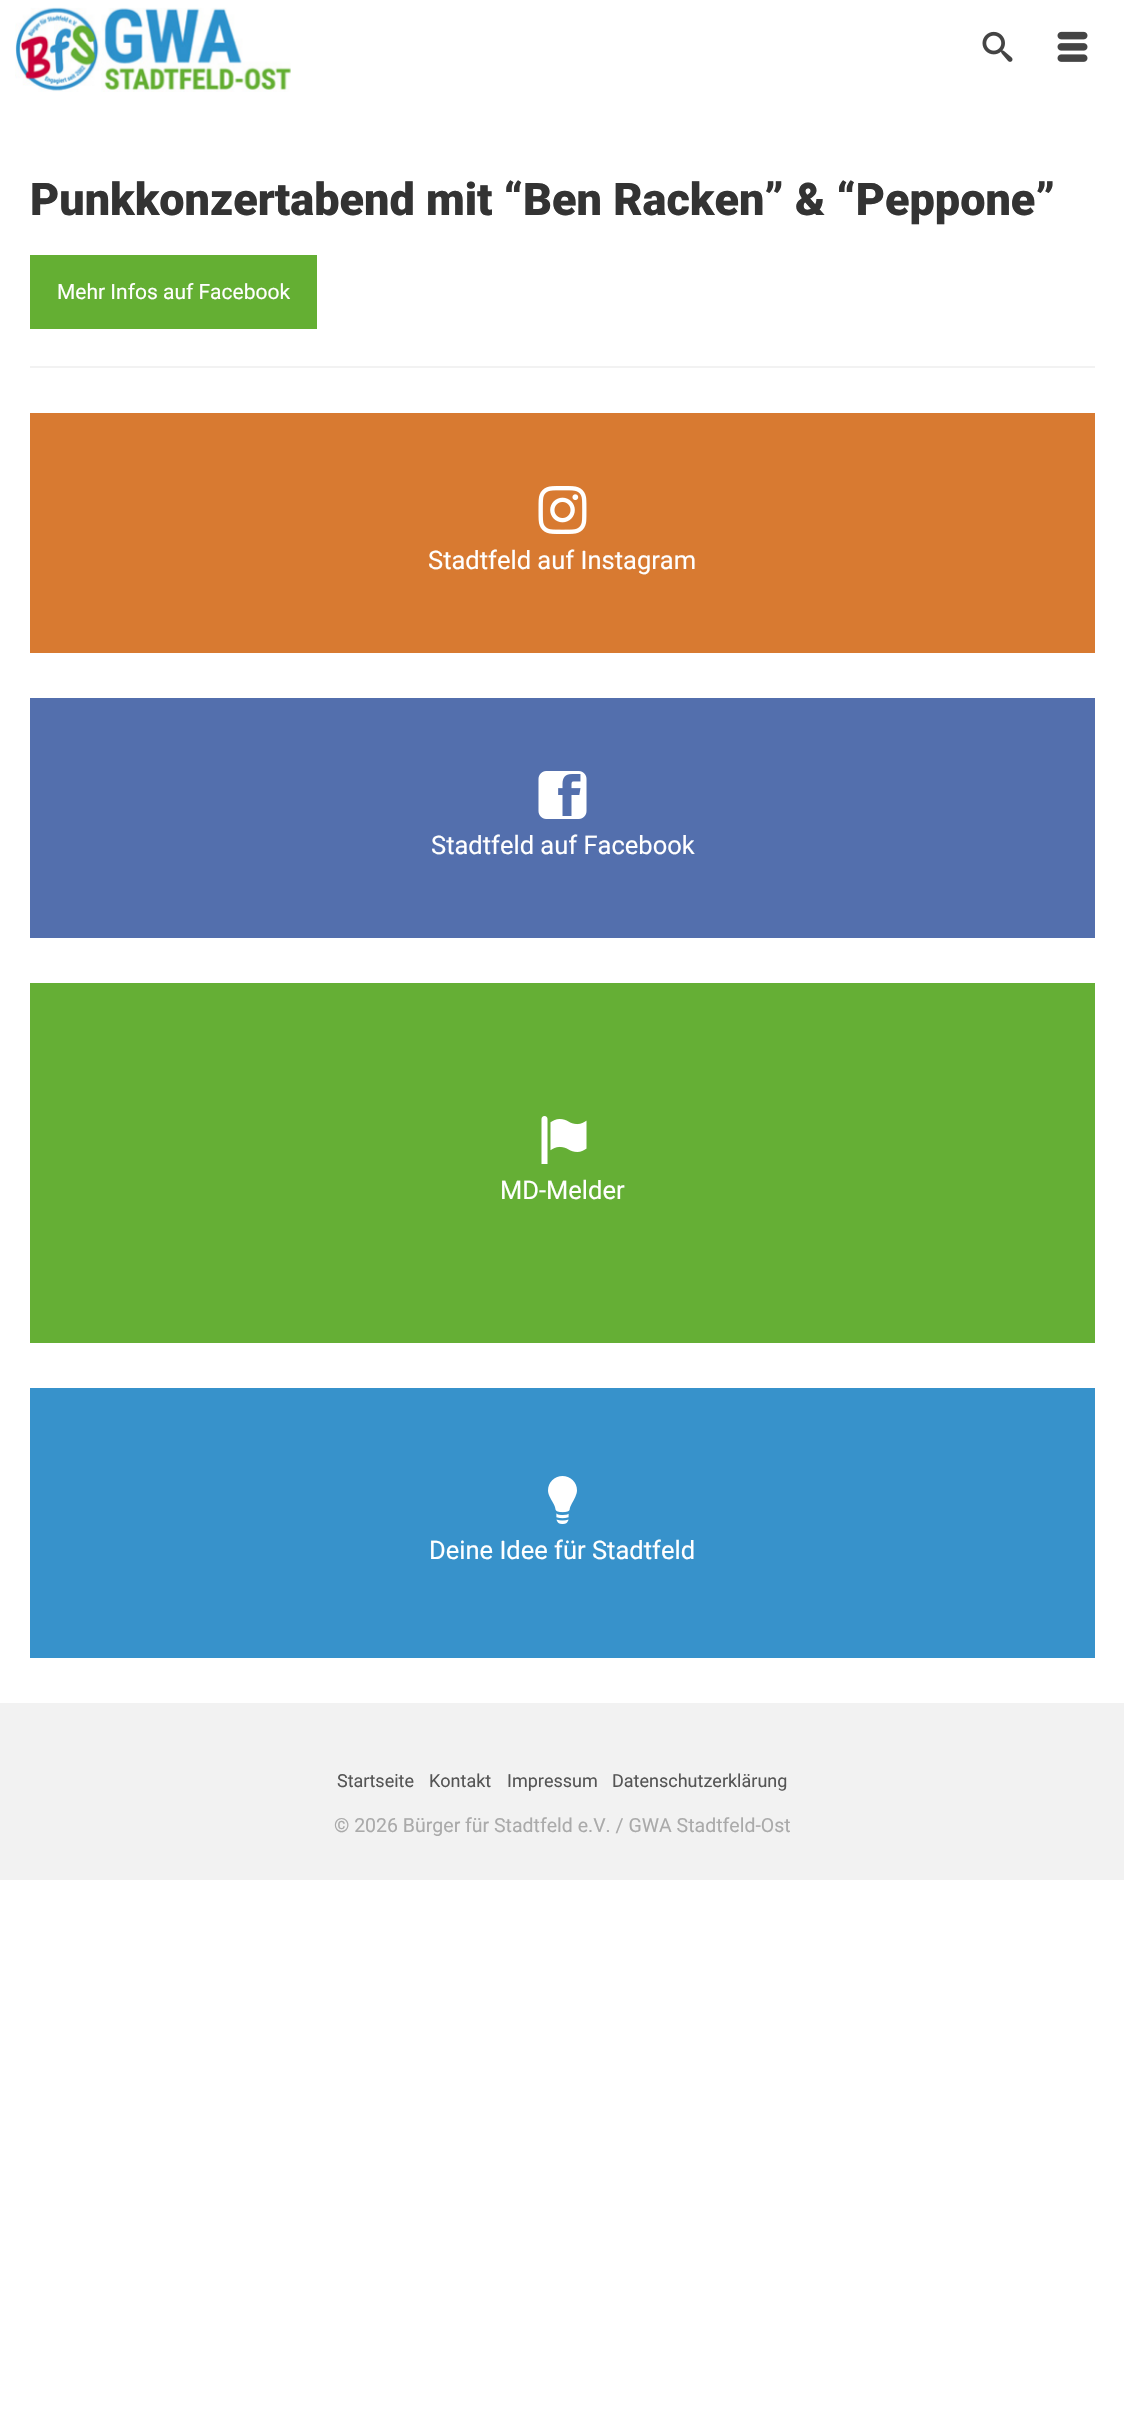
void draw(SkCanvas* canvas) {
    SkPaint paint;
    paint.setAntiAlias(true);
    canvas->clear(0xFFFFFFFF);
    canvas->drawImageRect(SkImages::DeferredFromEncodedData(SkData::MakeFromFileName("img1.png")), SkRect::MakeXYWH(15, 7, 276, 85), SkSamplingOptions());
    canvas->drawImageRect(SkImages::DeferredFromEncodedData(SkData::MakeFromFileName("img2.png")), SkRect::MakeXYWH(982, 31, 31, 31), SkSamplingOptions());
    canvas->drawImageRect(SkImages::DeferredFromEncodedData(SkData::MakeFromFileName("img3.png")), SkRect::MakeXYWH(1057, 31, 31, 31), SkSamplingOptions());
    SkFont font1(fontMgr->matchFamilyStyle("Roboto", SkFontStyle(900, SkFontStyle::kNormal_Width, SkFontStyle::kUpright_Slant)), 45);
    font1.setSubpixel(true);
    paint.setColor(0xFF333333);
    canvas->drawString("Punkkonzertabend mit “Ben Racken” & “Peppone”", 30, 215, font1, paint);
    paint.setColor(0xFF64AF33);
    canvas->drawRect(SkRect::MakeXYWH(30, 255, 287, 74), paint);
    SkFont font2(fontMgr->matchFamilyStyle("Roboto", SkFontStyle::Normal()), 21);
    font2.setSubpixel(true);
    paint.setColor(0xFFFFFFFF);
    canvas->drawString("Mehr Infos auf Facebook", 57, 299, font2, paint);
    paint.setColor(0xFFF2F2F2);
    canvas->drawRect(SkRect::MakeXYWH(30, 366, 1065, 2), paint);
    paint.setColor(0xFFD87A31);
    canvas->drawRect(SkRect::MakeXYWH(30, 413, 1065, 240), paint);
    canvas->drawImageRect(SkImages::DeferredFromEncodedData(SkData::MakeFromFileName("img4.png")), SkRect::MakeXYWH(538, 486, 49, 48), SkSamplingOptions());
    SkFont font3(fontMgr->matchFamilyStyle("Roboto", SkFontStyle::Normal()), 25.5f);
    font3.setSubpixel(true);
    paint.setColor(0xFFFFFFFF);
    canvas->drawString("Stadtfeld auf Instagram", 428, 569, font3, paint);
    paint.setColor(0xFF536FAD);
    canvas->drawRect(SkRect::MakeXYWH(30, 698, 1065, 240), paint);
    canvas->drawImageRect(SkImages::DeferredFromEncodedData(SkData::MakeFromFileName("img5.png")), SkRect::MakeXYWH(538, 771, 49, 48), SkSamplingOptions());
    paint.setColor(0xFFFFFFFF);
    canvas->drawString("Stadtfeld auf Facebook", 431, 854, font3, paint);
    paint.setColor(0xFF65AF35);
    canvas->drawRect(SkRect::MakeXYWH(30, 983, 1065, 360), paint);
    canvas->drawImageRect(SkImages::DeferredFromEncodedData(SkData::MakeFromFileName("img6.png")), SkRect::MakeXYWH(541, 1116, 46, 48), SkSamplingOptions());
    paint.setColor(0xFFFFFFFF);
    canvas->drawString("MD-Melder", 500, 1199, font3, paint);
    paint.setColor(0xFF3792CB);
    canvas->drawRect(SkRect::MakeXYWH(30, 1388, 1065, 270), paint);
    canvas->drawImageRect(SkImages::DeferredFromEncodedData(SkData::MakeFromFileName("img7.png")), SkRect::MakeXYWH(548, 1476, 29, 48), SkSamplingOptions());
    paint.setColor(0xFFFFFFFF);
    canvas->drawString("Deine Idee für Stadtfeld", 429, 1559, font3, paint);
    paint.setColor(0xFFF2F2F2);
    canvas->drawRect(SkRect::MakeXYWH(0, 1703, 1124, 177), paint);
    SkFont font4(fontMgr->matchFamilyStyle("Roboto", SkFontStyle::Normal()), 18);
    font4.setSubpixel(true);
    paint.setColor(0xFF555555);
    canvas->drawString("Startseite", 337, 1787, font4, paint);
    canvas->drawString("Kontakt", 429, 1787, font4, paint);
    canvas->drawString("Impressum", 507, 1787, font4, paint);
    canvas->drawString("Datenschutzerklärung", 612, 1787, font4, paint);
    SkFont font5(fontMgr->matchFamilyStyle("Roboto", SkFontStyle::Normal()), 19.5f);
    font5.setSubpixel(true);
    paint.setColor(0xFFAAAAAA);
    canvas->drawString("© 2026 Bürger für Stadtfeld e.V. / GWA Stadtfeld-Ost", 334, 1832, font5, paint);
}
